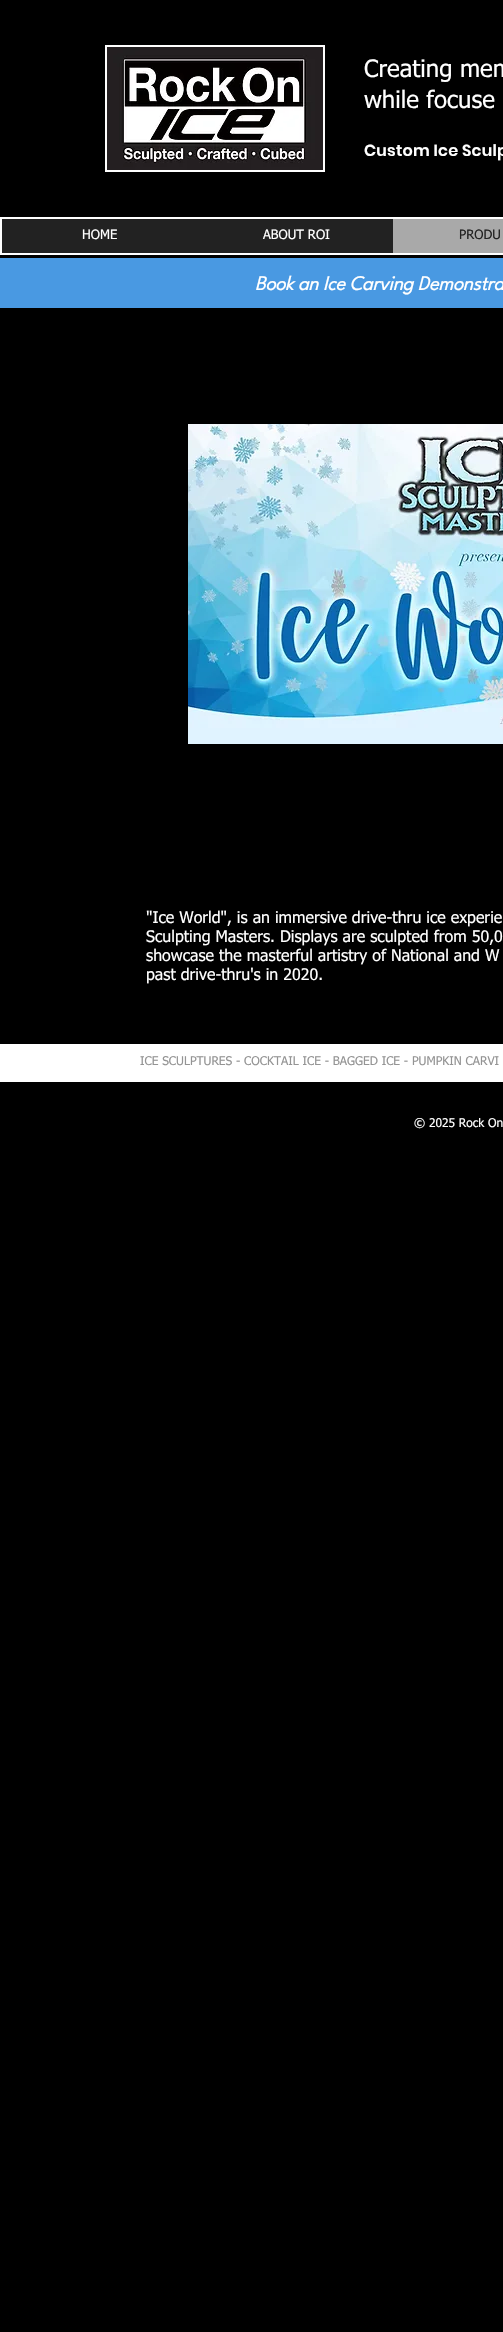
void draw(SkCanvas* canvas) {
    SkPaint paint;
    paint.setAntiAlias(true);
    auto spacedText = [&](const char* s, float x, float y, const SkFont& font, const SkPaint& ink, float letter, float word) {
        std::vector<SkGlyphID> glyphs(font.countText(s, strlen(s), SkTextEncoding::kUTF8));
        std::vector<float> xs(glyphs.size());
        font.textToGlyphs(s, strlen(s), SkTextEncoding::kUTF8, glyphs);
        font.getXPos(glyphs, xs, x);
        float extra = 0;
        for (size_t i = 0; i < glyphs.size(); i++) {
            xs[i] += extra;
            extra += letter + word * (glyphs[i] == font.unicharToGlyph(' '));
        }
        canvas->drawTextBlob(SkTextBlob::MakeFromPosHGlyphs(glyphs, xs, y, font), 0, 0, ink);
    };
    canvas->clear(0xFF000000);
    paint.setColor(0xFFFFFFFF);
    canvas->drawRect(SkRect::MakeXYWH(105, 45, 220, 127), paint);
    canvas->drawImageRect(SkImages::DeferredFromEncodedData(SkData::MakeFromFileName("img1.png")), SkRect::MakeXYWH(107, 47, 216, 123), SkSamplingOptions());
    SkFont font1(fontMgr->matchFamilyStyle("tahoma", SkFontStyle::Normal()), 24);
    font1.setSubpixel(true);
    canvas->drawString("Creating mem", 364, 77, font1, paint);
    canvas->drawString("while focuse", 364, 108, font1, paint);
    SkFont font2(fontMgr->matchFamilyStyle("Poppins", SkFontStyle(600, SkFontStyle::kNormal_Width, SkFontStyle::kUpright_Slant)), 16);
    font2.setSubpixel(true);
    spacedText("Custom Ice Sculp", 364, 156, font2, paint, 0.2f, 0);
    paint.setColor(0xFF222222);
    canvas->drawRect(SkRect::MakeXYWH(2, 219, 391, 34), paint);
    paint.setStyle(SkPaint::kStroke_Style);
    paint.setStrokeWidth(2);
    paint.setColor(0xFFFFFFFF);
    canvas->drawRect(SkRect::MakeXYWH(1, 218, 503, 36), paint);
    SkFont font3(fontMgr->matchFamilyStyle("tahoma", SkFontStyle::Normal()), 13);
    font3.setSubpixel(true);
    paint.setStyle(SkPaint::kFill_Style);
    canvas->drawString("HOME", 82, 239, font3, paint);
    canvas->drawString("ABOUT ROI", 263, 239, font3, paint);
    paint.setColor(0xFFA9A9A9);
    canvas->drawRect(SkRect::MakeXYWH(393, 219, 110, 34), paint);
    paint.setColor(0xFF222222);
    canvas->drawString("PRODU", 459, 239, font3, paint);
    paint.setColor(0xFF4999E2);
    canvas->drawRect(SkRect::MakeXYWH(0, 258, 503, 50), paint);
    SkFont font4(fontMgr->matchFamilyStyle("League Spartan", SkFontStyle::BoldItalic()), 20);
    font4.setSubpixel(true);
    paint.setColor(0xFFFFFFFF);
    canvas->drawString("Book an Ice Carving Demonstra", 255, 290, font4, paint);
    canvas->drawImageRect(SkImages::DeferredFromEncodedData(SkData::MakeFromFileName("img2.png")), SkRect::MakeXYWH(188, 424, 315, 320), SkSamplingOptions());
    SkFont font5(fontMgr->matchFamilyStyle("tahoma", SkFontStyle::Normal()), 16);
    font5.setSubpixel(true);
    canvas->drawString("\"Ice World\", is an immersive drive-thru ice experie", 146, 923, font5, paint);
    canvas->drawString("Sculpting Masters. Displays are sculpted from 50,0", 146, 942, font5, paint);
    canvas->drawString("showcase the masterful artistry of National and W", 146, 961, font5, paint);
    canvas->drawString("past drive-thru's in 2020.", 146, 980, font5, paint);
    canvas->drawRect(SkRect::MakeXYWH(0, 1044, 503, 38), paint);
    SkFont font6(fontMgr->matchFamilyStyle("tahoma", SkFontStyle::Normal()), 12);
    font6.setSubpixel(true);
    paint.setColor(0xFF949494);
    canvas->drawString("ICE SCULPTURES - COCKTAIL ICE - BAGGED ICE - PUMPKIN CARVI", 140, 1065, font6, paint);
    paint.setColor(0xFFFFFFFF);
    canvas->drawString("© 2025 Rock On", 414, 1127, font6, paint);
}
